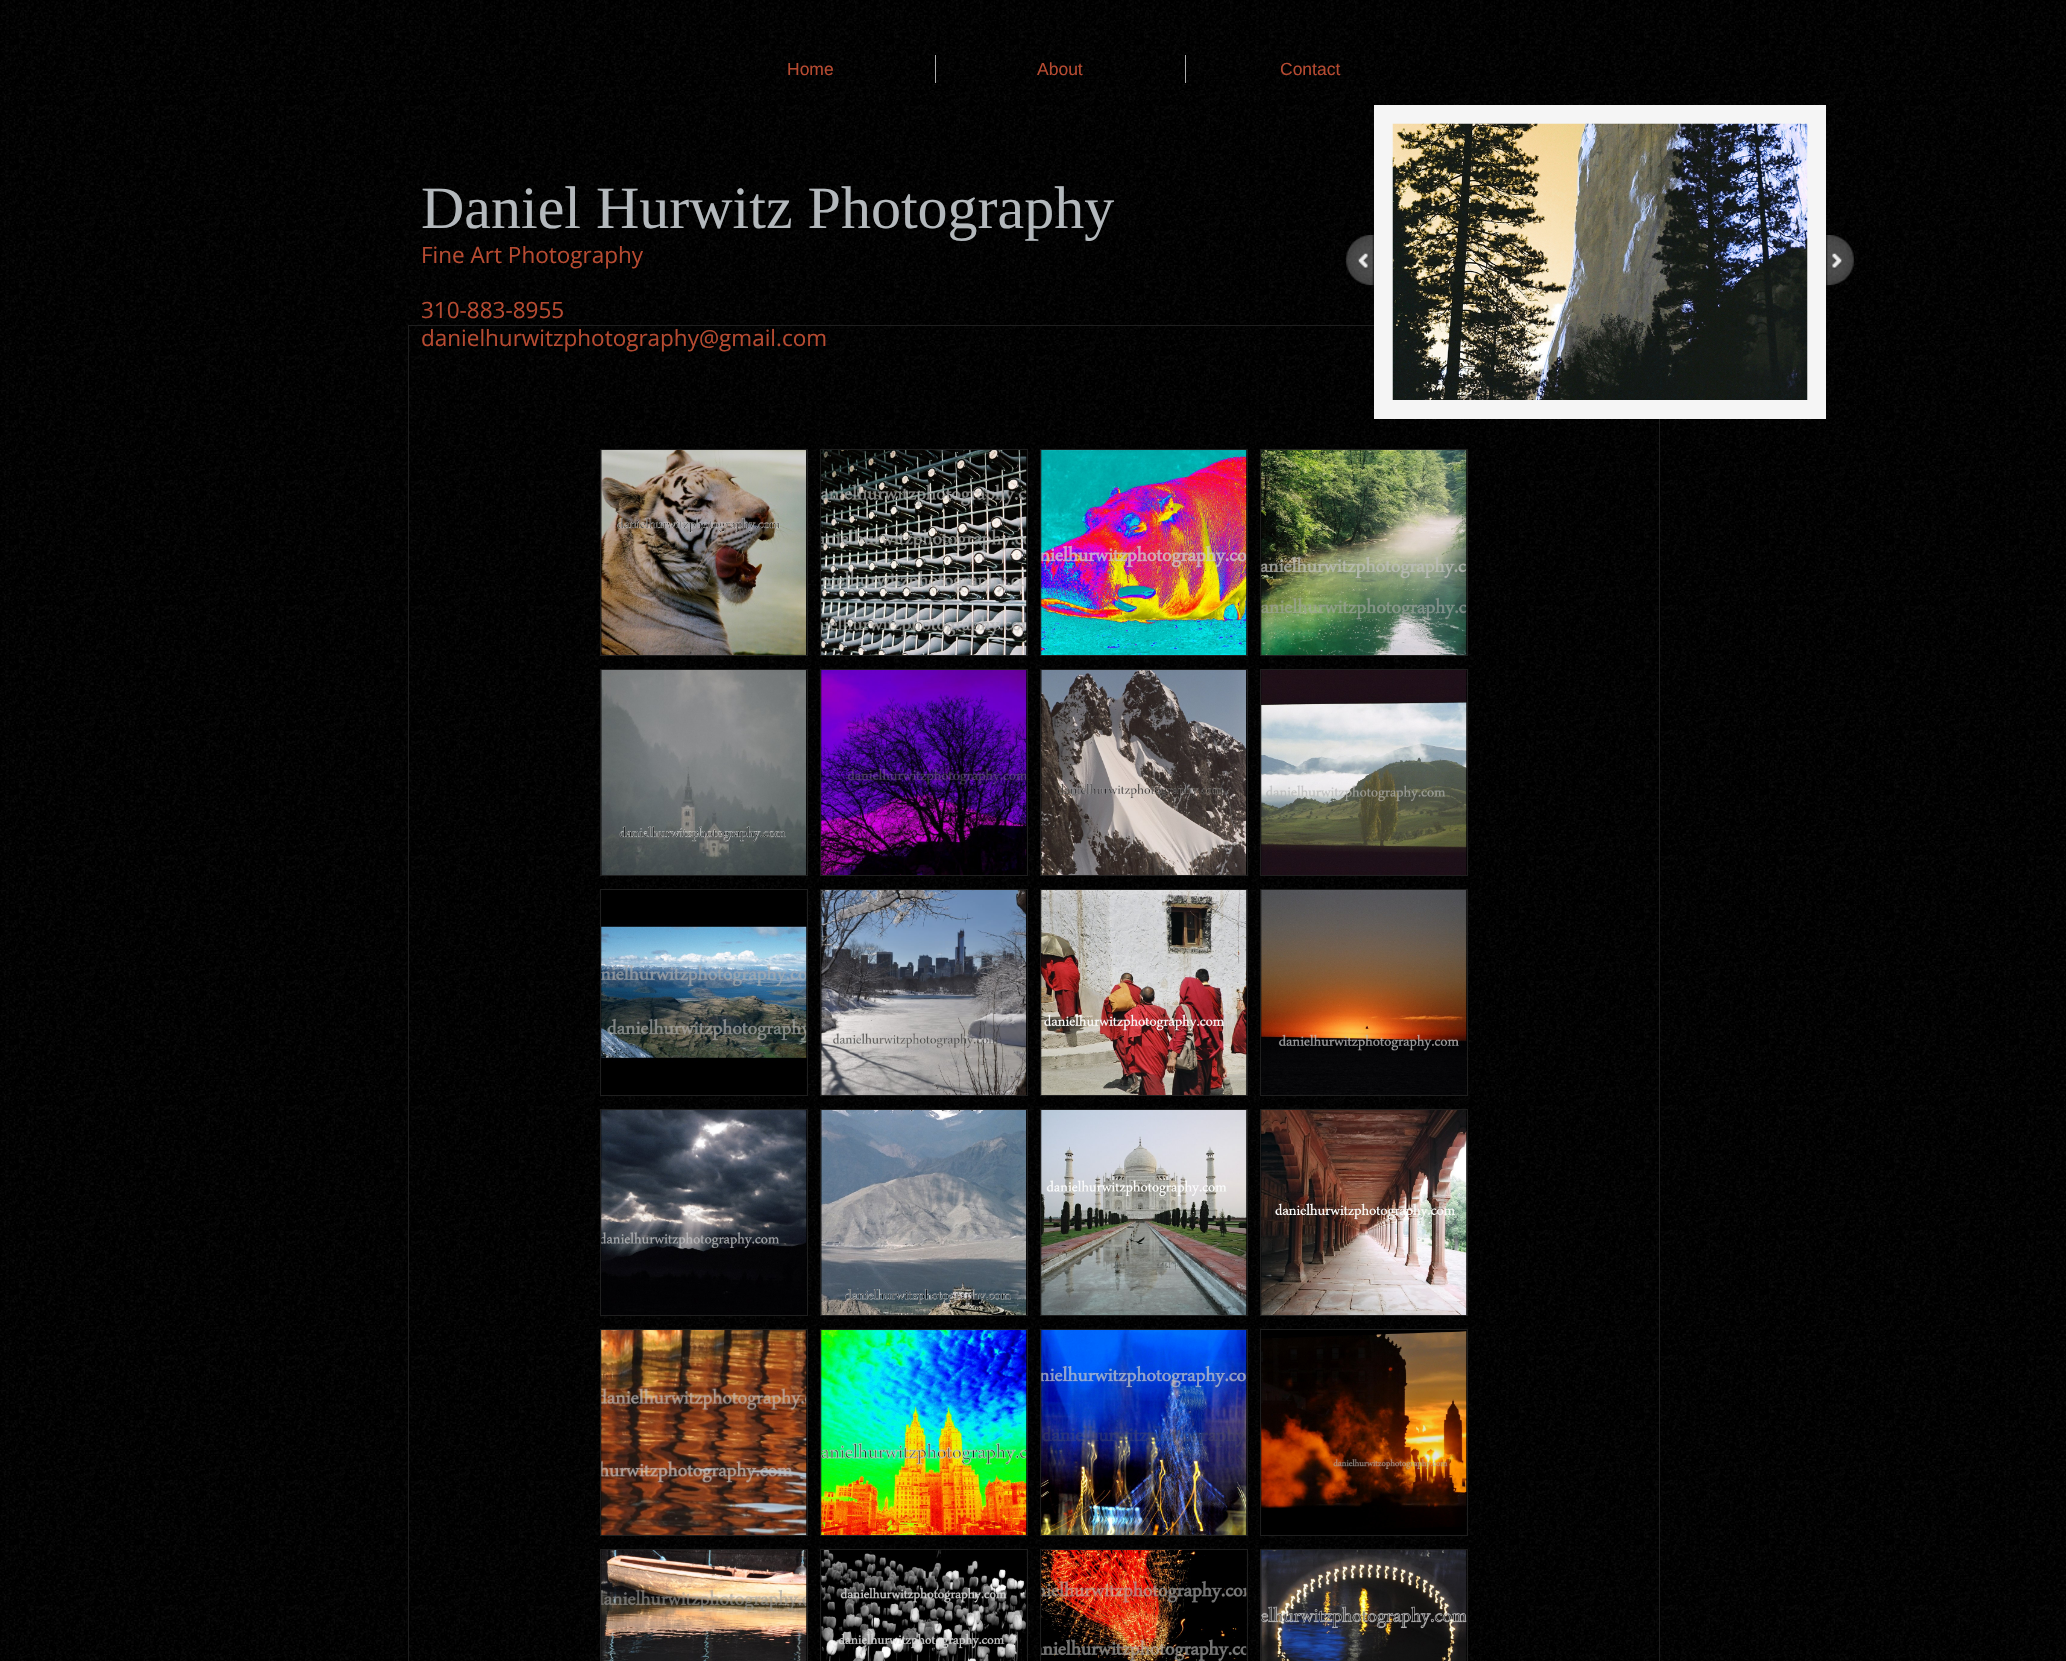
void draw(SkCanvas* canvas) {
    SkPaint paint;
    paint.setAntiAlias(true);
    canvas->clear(0xFF000000);
    canvas->drawImageRect(SkImages::DeferredFromEncodedData(SkData::MakeFromFileName("img1.png")), SkRect::MakeXYWH(0, 0, 2066, 1661), SkSamplingOptions());
    paint.setStyle(SkPaint::kStroke_Style);
    paint.setStrokeWidth(1);
    paint.setColor(0xFF1F1F1F);
    canvas->drawRect(SkRect::MakeXYWH(408.5f, 325.5f, 1251, 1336), paint);
    paint.setStyle(SkPaint::kFill_Style);
    paint.setColor(0xFFAEAEAE);
    canvas->drawRect(SkRect::MakeXYWH(935, 55, 1, 28), paint);
    SkFont font1(fontMgr->matchFamilyStyle("Liberation Sans", SkFontStyle::Normal()), 17.5f);
    font1.setSubpixel(true);
    paint.setColor(0xFFB64A31);
    canvas->drawString("Home", 787, 75, font1, paint);
    paint.setColor(0xFFAEAEAE);
    canvas->drawRect(SkRect::MakeXYWH(1185, 55, 1, 28), paint);
    paint.setColor(0xFFB64A31);
    canvas->drawString("About", 1037, 75, font1, paint);
    canvas->drawString("Contact", 1280, 75, font1, paint);
    SkFont font2(fontMgr->matchFamilyStyle("Liberation Serif", SkFontStyle::Normal()), 60);
    font2.setSubpixel(true);
    paint.setColor(0xFFB3B8BC);
    canvas->drawString("Daniel Hurwitz Photography", 421, 228, font2, paint);
    canvas->drawImageRect(SkImages::DeferredFromEncodedData(SkData::MakeFromFileName("img2.png")), SkRect::MakeXYWH(1346, 235, 28, 51), SkSamplingOptions());
    paint.setStyle(SkPaint::kStroke_Style);
    paint.setStrokeWidth(19);
    paint.setColor(0xFFF5F5F5);
    canvas->drawRect(SkRect::MakeXYWH(1383.5f, 114.5f, 433, 295), paint);
    canvas->drawImageRect(SkImages::DeferredFromEncodedData(SkData::MakeFromFileName("img3.png")), SkRect::MakeXYWH(1392, 123, 416, 277), SkSamplingOptions());
    canvas->drawImageRect(SkImages::DeferredFromEncodedData(SkData::MakeFromFileName("img4.png")), SkRect::MakeXYWH(1826, 235, 28, 51), SkSamplingOptions());
    SkFont font3(fontMgr->matchFamilyStyle("Open Sans", SkFontStyle::Normal()), 22.5f);
    font3.setSubpixel(true);
    paint.setStyle(SkPaint::kFill_Style);
    paint.setColor(0xFFB64A31);
    canvas->drawString("Fine Art Photography", 421, 263, font3, paint);
    canvas->drawString("310-883-8955", 421, 318, font3, paint);
    canvas->drawString("danielhurwitzphotography@gmail.com", 421, 346, font3, paint);
    paint.setStyle(SkPaint::kStroke_Style);
    paint.setStrokeWidth(1);
    paint.setColor(0xFF1F1F1F);
    canvas->drawRect(SkRect::MakeXYWH(600.5f, 449.5f, 207, 206), paint);
    canvas->drawImageRect(SkImages::DeferredFromEncodedData(SkData::MakeFromFileName("img5.png")), SkRect::MakeXYWH(601, 450, 206, 205), SkSamplingOptions());
    canvas->drawRect(SkRect::MakeXYWH(820.5f, 449.5f, 207, 206), paint);
    canvas->drawImageRect(SkImages::DeferredFromEncodedData(SkData::MakeFromFileName("img6.png")), SkRect::MakeXYWH(821, 450, 206, 205), SkSamplingOptions());
    canvas->drawRect(SkRect::MakeXYWH(1040.5f, 449.5f, 207, 206), paint);
    canvas->drawImageRect(SkImages::DeferredFromEncodedData(SkData::MakeFromFileName("img7.png")), SkRect::MakeXYWH(1041, 450, 206, 205), SkSamplingOptions());
    canvas->drawRect(SkRect::MakeXYWH(1260.5f, 449.5f, 207, 206), paint);
    canvas->drawImageRect(SkImages::DeferredFromEncodedData(SkData::MakeFromFileName("img8.png")), SkRect::MakeXYWH(1261, 450, 206, 205), SkSamplingOptions());
    canvas->drawRect(SkRect::MakeXYWH(600.5f, 669.5f, 207, 206), paint);
    canvas->drawImageRect(SkImages::DeferredFromEncodedData(SkData::MakeFromFileName("img9.png")), SkRect::MakeXYWH(601, 670, 206, 205), SkSamplingOptions());
    canvas->drawRect(SkRect::MakeXYWH(820.5f, 669.5f, 207, 206), paint);
    canvas->drawImageRect(SkImages::DeferredFromEncodedData(SkData::MakeFromFileName("img10.png")), SkRect::MakeXYWH(821, 670, 206, 205), SkSamplingOptions());
    canvas->drawRect(SkRect::MakeXYWH(1040.5f, 669.5f, 207, 206), paint);
    canvas->drawImageRect(SkImages::DeferredFromEncodedData(SkData::MakeFromFileName("img11.png")), SkRect::MakeXYWH(1041, 670, 206, 205), SkSamplingOptions());
    canvas->drawRect(SkRect::MakeXYWH(1260.5f, 669.5f, 207, 206), paint);
    canvas->drawImageRect(SkImages::DeferredFromEncodedData(SkData::MakeFromFileName("img12.png")), SkRect::MakeXYWH(1261, 670, 206, 205), SkSamplingOptions());
    canvas->drawRect(SkRect::MakeXYWH(600.5f, 889.5f, 207, 206), paint);
    canvas->drawImageRect(SkImages::DeferredFromEncodedData(SkData::MakeFromFileName("img13.png")), SkRect::MakeXYWH(601, 890, 206, 205), SkSamplingOptions());
    canvas->drawRect(SkRect::MakeXYWH(820.5f, 889.5f, 207, 206), paint);
    canvas->drawImageRect(SkImages::DeferredFromEncodedData(SkData::MakeFromFileName("img14.png")), SkRect::MakeXYWH(821, 890, 206, 205), SkSamplingOptions());
    canvas->drawRect(SkRect::MakeXYWH(1040.5f, 889.5f, 207, 206), paint);
    canvas->drawImageRect(SkImages::DeferredFromEncodedData(SkData::MakeFromFileName("img15.png")), SkRect::MakeXYWH(1041, 890, 206, 205), SkSamplingOptions());
    canvas->drawRect(SkRect::MakeXYWH(1260.5f, 889.5f, 207, 206), paint);
    canvas->drawImageRect(SkImages::DeferredFromEncodedData(SkData::MakeFromFileName("img16.png")), SkRect::MakeXYWH(1261, 890, 206, 205), SkSamplingOptions());
    canvas->drawRect(SkRect::MakeXYWH(600.5f, 1109.5f, 207, 206), paint);
    canvas->drawImageRect(SkImages::DeferredFromEncodedData(SkData::MakeFromFileName("img17.png")), SkRect::MakeXYWH(601, 1110, 206, 205), SkSamplingOptions());
    canvas->drawRect(SkRect::MakeXYWH(820.5f, 1109.5f, 207, 206), paint);
    canvas->drawImageRect(SkImages::DeferredFromEncodedData(SkData::MakeFromFileName("img18.png")), SkRect::MakeXYWH(821, 1110, 206, 205), SkSamplingOptions());
    canvas->drawRect(SkRect::MakeXYWH(1040.5f, 1109.5f, 207, 206), paint);
    canvas->drawImageRect(SkImages::DeferredFromEncodedData(SkData::MakeFromFileName("img19.png")), SkRect::MakeXYWH(1041, 1110, 206, 205), SkSamplingOptions());
    canvas->drawRect(SkRect::MakeXYWH(1260.5f, 1109.5f, 207, 206), paint);
    canvas->drawImageRect(SkImages::DeferredFromEncodedData(SkData::MakeFromFileName("img20.png")), SkRect::MakeXYWH(1261, 1110, 206, 205), SkSamplingOptions());
    canvas->drawRect(SkRect::MakeXYWH(600.5f, 1329.5f, 207, 206), paint);
    canvas->drawImageRect(SkImages::DeferredFromEncodedData(SkData::MakeFromFileName("img21.png")), SkRect::MakeXYWH(601, 1330, 206, 205), SkSamplingOptions());
    canvas->drawRect(SkRect::MakeXYWH(820.5f, 1329.5f, 207, 206), paint);
    canvas->drawImageRect(SkImages::DeferredFromEncodedData(SkData::MakeFromFileName("img22.png")), SkRect::MakeXYWH(821, 1330, 206, 205), SkSamplingOptions());
    canvas->drawRect(SkRect::MakeXYWH(1040.5f, 1329.5f, 207, 206), paint);
    canvas->drawImageRect(SkImages::DeferredFromEncodedData(SkData::MakeFromFileName("img23.png")), SkRect::MakeXYWH(1041, 1330, 206, 205), SkSamplingOptions());
    canvas->drawRect(SkRect::MakeXYWH(1260.5f, 1329.5f, 207, 206), paint);
    canvas->drawImageRect(SkImages::DeferredFromEncodedData(SkData::MakeFromFileName("img24.png")), SkRect::MakeXYWH(1261, 1330, 206, 205), SkSamplingOptions());
    canvas->drawRect(SkRect::MakeXYWH(600.5f, 1549.5f, 207, 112), paint);
    canvas->drawImageRect(SkImages::DeferredFromEncodedData(SkData::MakeFromFileName("img25.png")), SkRect::MakeXYWH(601, 1550, 206, 111), SkSamplingOptions());
    canvas->drawRect(SkRect::MakeXYWH(820.5f, 1549.5f, 207, 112), paint);
    canvas->drawImageRect(SkImages::DeferredFromEncodedData(SkData::MakeFromFileName("img26.png")), SkRect::MakeXYWH(821, 1550, 206, 111), SkSamplingOptions());
    canvas->drawRect(SkRect::MakeXYWH(1040.5f, 1549.5f, 207, 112), paint);
    canvas->drawImageRect(SkImages::DeferredFromEncodedData(SkData::MakeFromFileName("img27.png")), SkRect::MakeXYWH(1041, 1550, 206, 111), SkSamplingOptions());
    canvas->drawRect(SkRect::MakeXYWH(1260.5f, 1549.5f, 207, 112), paint);
    canvas->drawImageRect(SkImages::DeferredFromEncodedData(SkData::MakeFromFileName("img28.png")), SkRect::MakeXYWH(1261, 1550, 206, 111), SkSamplingOptions());
}
